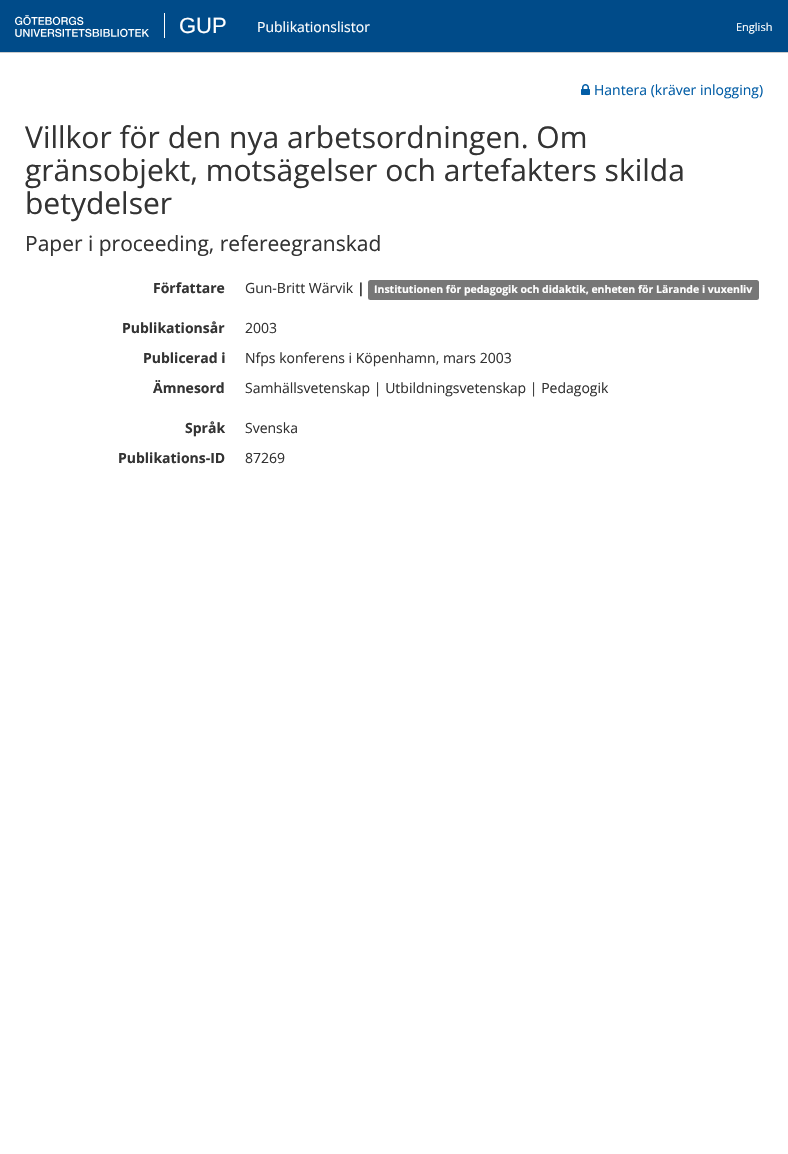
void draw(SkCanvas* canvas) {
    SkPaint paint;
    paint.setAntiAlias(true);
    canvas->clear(0xFFFFFFFF);
    paint.setColor(0xFF004B89);
    canvas->drawRect(SkRect::MakeXYWH(0, 0, 788, 52), paint);
    paint.setColor(0xFFCCCCCC);
    canvas->drawRect(SkRect::MakeXYWH(0, 52, 788, 1), paint);
    canvas->drawImageRect(SkImages::DeferredFromEncodedData(SkData::MakeFromFileName("img1.png")), SkRect::MakeXYWH(15, 15, 134, 22), SkSamplingOptions());
    paint.setColor(0xFFFFFFFF);
    canvas->drawRect(SkRect::MakeXYWH(164, 13, 1, 25), paint);
    SkFont font1(fontMgr->matchFamilyStyle("Liberation Sans", SkFontStyle::Normal()), 22);
    font1.setSubpixel(true);
    canvas->drawString("GUP", 179, 33, font1, paint);
    SkFont font2(fontMgr->matchFamilyStyle("Open Sans", SkFontStyle::Normal()), 14);
    font2.setSubpixel(true);
    canvas->drawString("Publikationslistor", 257, 32, font2, paint);
    SkFont font3(fontMgr->matchFamilyStyle("Open Sans", SkFontStyle::Normal()), 11);
    font3.setSubpixel(true);
    canvas->drawString("English", 736, 31, font3, paint);
    canvas->drawImageRect(SkImages::DeferredFromEncodedData(SkData::MakeFromFileName("img2.png")), SkRect::MakeXYWH(581, 84, 9, 11), SkSamplingOptions());
    paint.setColor(0xFF025DA6);
    canvas->drawString("Hantera (kräver inlogging)", 594, 95, font2, paint);
    SkFont font4(fontMgr->matchFamilyStyle("Open Sans", SkFontStyle::Normal()), 30);
    font4.setSubpixel(true);
    paint.setColor(0xFF333333);
    canvas->drawString("Villkor för den nya arbetsordningen. Om", 25, 148, font4, paint);
    canvas->drawString("gränsobjekt, motsägelser och artefakters skilda", 25, 181, font4, paint);
    canvas->drawString("betydelser", 25, 214, font4, paint);
    SkFont font5(fontMgr->matchFamilyStyle("Open Sans", SkFontStyle::Normal()), 21);
    font5.setSubpixel(true);
    canvas->drawString("Paper i proceeding, refereegranskad", 25, 251, font5, paint);
    SkFont font6(fontMgr->matchFamilyStyle("Open Sans", SkFontStyle::Bold()), 14);
    font6.setSubpixel(true);
    canvas->drawString("Författare", 153, 293, font6, paint);
    canvas->drawString("Gun-Britt Wärvik", 245, 293, font2, paint);
    canvas->drawString("|", 357, 293, font6, paint);
    paint.setColor(0xFF777777);
    canvas->drawRoundRect(SkRect::MakeXYWH(368, 280, 391, 20), 2.5f, 2.5f, paint);
    SkFont font7(fontMgr->matchFamilyStyle("Open Sans", SkFontStyle::Bold()), 10.5f);
    font7.setSubpixel(true);
    paint.setColor(0xFFFFFFFF);
    canvas->drawString("Institutionen för pedagogik och didaktik, enheten för Lärande i vuxenliv", 374, 293, font7, paint);
    paint.setColor(0xFF333333);
    canvas->drawString("Publikationsår", 122, 333, font6, paint);
    canvas->drawString("2003", 245, 333, font2, paint);
    canvas->drawString("Publicerad i", 143, 363, font6, paint);
    canvas->drawString("Nfps konferens i Köpenhamn, mars 2003", 245, 363, font2, paint);
    canvas->drawString("Ämnesord", 153, 393, font6, paint);
    canvas->drawString("Samhällsvetenskap | Utbildningsvetenskap | Pedagogik", 245, 393, font2, paint);
    canvas->drawString("Språk", 185, 433, font6, paint);
    canvas->drawString("Svenska", 245, 433, font2, paint);
    canvas->drawString("Publikations-ID", 118, 463, font6, paint);
    canvas->drawString("87269", 245, 463, font2, paint);
}
